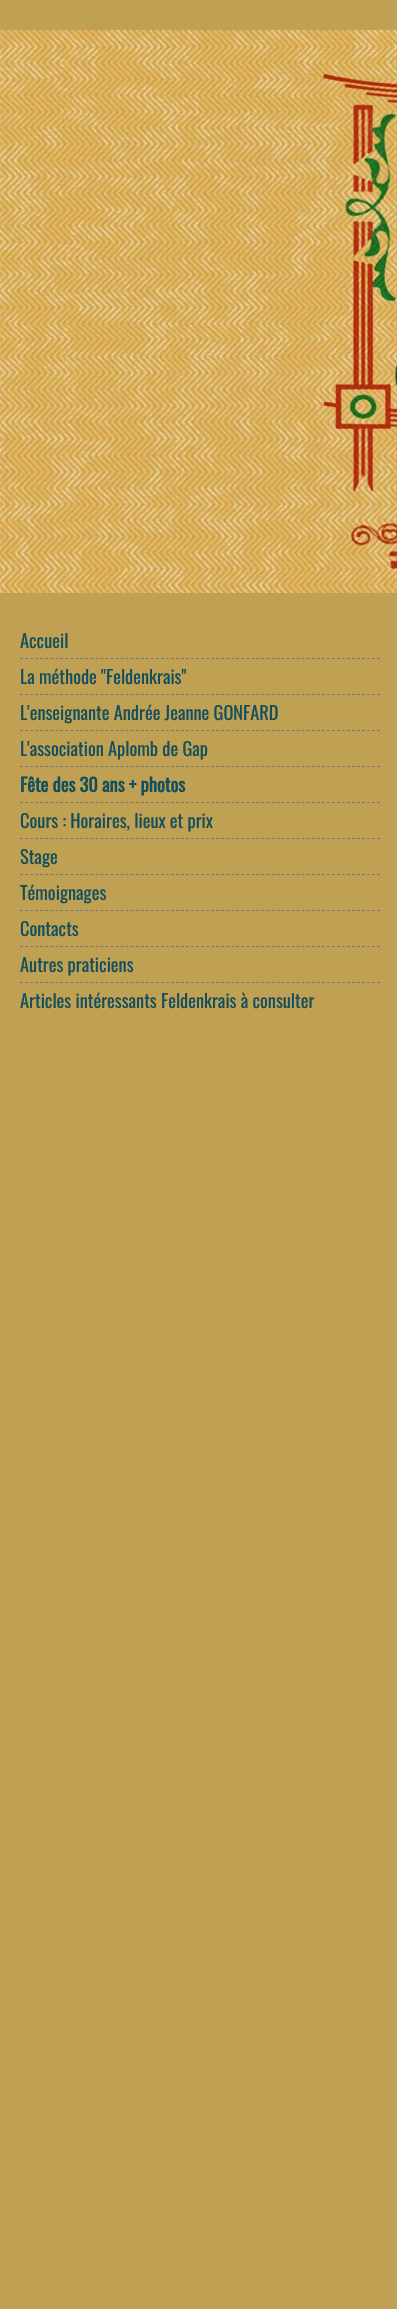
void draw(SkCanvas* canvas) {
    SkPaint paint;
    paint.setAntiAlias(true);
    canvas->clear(0xFFC0A154);
    canvas->drawImageRect(SkImages::DeferredFromEncodedData(SkData::MakeFromFileName("img1.png")), SkRect::MakeXYWH(0, 30, 397, 563), SkSamplingOptions());
    SkFont font1(fontMgr->matchFamilyStyle("Oswald", SkFontStyle::Normal()), 18.4f);
    font1.setSubpixel(true);
    paint.setColor(0xFF134F5C);
    canvas->drawString("Accueil", 20, 648, font1, paint);
    paint.setStyle(SkPaint::kStroke_Style);
    paint.setStrokeWidth(1);
    paint.setColor(0xFF777777);
    paint.setPathEffect(SkDashPathEffect::Make({{3, 2.03f}}, 0));
    canvas->drawPath(SkPathBuilder().moveTo(20, 658.5f).lineTo(380, 658.5f).detach(), paint);
    paint.setPathEffect(nullptr);
    paint.setStyle(SkPaint::kFill_Style);
    paint.setColor(0xFF134F5C);
    canvas->drawString("La méthode \"Feldenkrais\"", 20, 684, font1, paint);
    paint.setStyle(SkPaint::kStroke_Style);
    paint.setColor(0xFF777777);
    paint.setPathEffect(SkDashPathEffect::Make({{3, 2.03f}}, 0));
    canvas->drawPath(SkPathBuilder().moveTo(20, 694.5f).lineTo(380, 694.5f).detach(), paint);
    paint.setPathEffect(nullptr);
    paint.setStyle(SkPaint::kFill_Style);
    paint.setColor(0xFF134F5C);
    canvas->drawString("L'enseignante Andrée Jeanne GONFARD", 20, 720, font1, paint);
    paint.setStyle(SkPaint::kStroke_Style);
    paint.setColor(0xFF777777);
    paint.setPathEffect(SkDashPathEffect::Make({{3, 2.03f}}, 0));
    canvas->drawPath(SkPathBuilder().moveTo(20, 730.5f).lineTo(380, 730.5f).detach(), paint);
    paint.setPathEffect(nullptr);
    paint.setStyle(SkPaint::kFill_Style);
    paint.setColor(0xFF134F5C);
    canvas->drawString("L'association Aplomb de Gap", 20, 756, font1, paint);
    paint.setStyle(SkPaint::kStroke_Style);
    paint.setColor(0xFF777777);
    paint.setPathEffect(SkDashPathEffect::Make({{3, 2.03f}}, 0));
    canvas->drawPath(SkPathBuilder().moveTo(20, 766.5f).lineTo(380, 766.5f).detach(), paint);
    paint.setPathEffect(nullptr);
    SkFont font2(fontMgr->matchFamilyStyle("Oswald", SkFontStyle::Bold()), 18.4f);
    font2.setSubpixel(true);
    paint.setStyle(SkPaint::kFill_Style);
    paint.setColor(0xFF134F5C);
    canvas->drawString("Fête des 30 ans + photos", 20, 792, font2, paint);
    paint.setStyle(SkPaint::kStroke_Style);
    paint.setColor(0xFF777777);
    paint.setPathEffect(SkDashPathEffect::Make({{3, 2.03f}}, 0));
    canvas->drawPath(SkPathBuilder().moveTo(20, 802.5f).lineTo(380, 802.5f).detach(), paint);
    paint.setPathEffect(nullptr);
    paint.setStyle(SkPaint::kFill_Style);
    paint.setColor(0xFF134F5C);
    canvas->drawString("Cours : Horaires, lieux et prix", 20, 828, font1, paint);
    paint.setStyle(SkPaint::kStroke_Style);
    paint.setColor(0xFF777777);
    paint.setPathEffect(SkDashPathEffect::Make({{3, 2.03f}}, 0));
    canvas->drawPath(SkPathBuilder().moveTo(20, 838.5f).lineTo(380, 838.5f).detach(), paint);
    paint.setPathEffect(nullptr);
    paint.setStyle(SkPaint::kFill_Style);
    paint.setColor(0xFF134F5C);
    canvas->drawString("Stage", 20, 864, font1, paint);
    paint.setStyle(SkPaint::kStroke_Style);
    paint.setColor(0xFF777777);
    paint.setPathEffect(SkDashPathEffect::Make({{3, 2.03f}}, 0));
    canvas->drawPath(SkPathBuilder().moveTo(20, 874.5f).lineTo(380, 874.5f).detach(), paint);
    paint.setPathEffect(nullptr);
    paint.setStyle(SkPaint::kFill_Style);
    paint.setColor(0xFF134F5C);
    canvas->drawString("Témoignages", 20, 900, font1, paint);
    paint.setStyle(SkPaint::kStroke_Style);
    paint.setColor(0xFF777777);
    paint.setPathEffect(SkDashPathEffect::Make({{3, 2.03f}}, 0));
    canvas->drawPath(SkPathBuilder().moveTo(20, 910.5f).lineTo(380, 910.5f).detach(), paint);
    paint.setPathEffect(nullptr);
    paint.setStyle(SkPaint::kFill_Style);
    paint.setColor(0xFF134F5C);
    canvas->drawString("Contacts", 20, 936, font1, paint);
    paint.setStyle(SkPaint::kStroke_Style);
    paint.setColor(0xFF777777);
    paint.setPathEffect(SkDashPathEffect::Make({{3, 2.03f}}, 0));
    canvas->drawPath(SkPathBuilder().moveTo(20, 946.5f).lineTo(380, 946.5f).detach(), paint);
    paint.setPathEffect(nullptr);
    paint.setStyle(SkPaint::kFill_Style);
    paint.setColor(0xFF134F5C);
    canvas->drawString("Autres praticiens", 20, 972, font1, paint);
    paint.setStyle(SkPaint::kStroke_Style);
    paint.setColor(0xFF777777);
    paint.setPathEffect(SkDashPathEffect::Make({{3, 2.03f}}, 0));
    canvas->drawPath(SkPathBuilder().moveTo(20, 982.5f).lineTo(380, 982.5f).detach(), paint);
    paint.setPathEffect(nullptr);
    paint.setStyle(SkPaint::kFill_Style);
    paint.setColor(0xFF134F5C);
    canvas->drawString("Articles intéressants Feldenkrais à consulter", 20, 1008, font1, paint);
}
